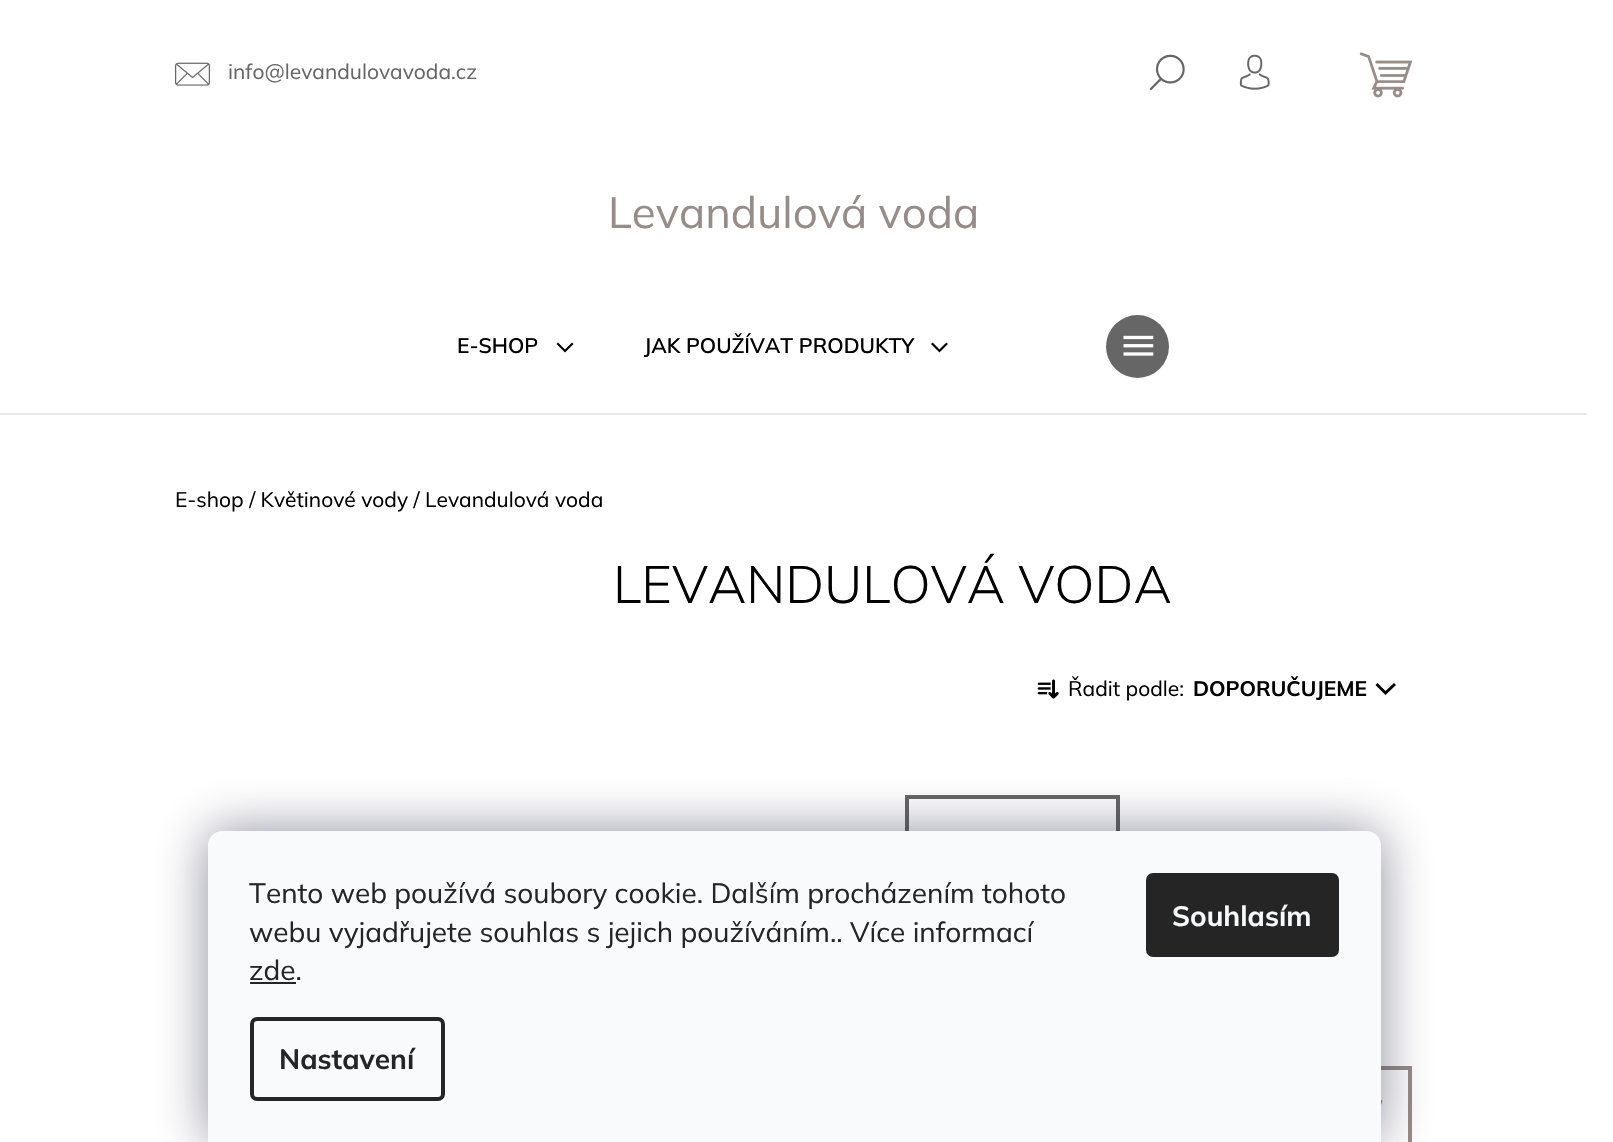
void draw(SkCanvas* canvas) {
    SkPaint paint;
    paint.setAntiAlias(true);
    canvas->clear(0xFFFFFFFF);
    paint.setColor(0xFFE7E7E7);
    canvas->drawRect(SkRect::MakeXYWH(0, 413, 1587, 2), paint);
    canvas->drawImageRect(SkImages::DeferredFromEncodedData(SkData::MakeFromFileName("img1.png")), SkRect::MakeXYWH(175, 62, 35, 24), SkSamplingOptions());
    SkFont font1(fontMgr->matchFamilyStyle("Mulish", SkFontStyle::Normal()), 21);
    font1.setSubpixel(true);
    paint.setColor(0xFF666666);
    canvas->drawString("info@levandulovavoda.cz", 228, 79, font1, paint);
    canvas->drawImageRect(SkImages::DeferredFromEncodedData(SkData::MakeFromFileName("img2.png")), SkRect::MakeXYWH(1149, 54, 36, 37), SkSamplingOptions());
    canvas->drawImageRect(SkImages::DeferredFromEncodedData(SkData::MakeFromFileName("img3.png")), SkRect::MakeXYWH(1239, 54, 31, 36), SkSamplingOptions());
    canvas->drawImageRect(SkImages::DeferredFromEncodedData(SkData::MakeFromFileName("img4.png")), SkRect::MakeXYWH(1359, 52, 54, 46), SkSamplingOptions());
    SkFont font2(fontMgr->matchFamilyStyle("Mulish", SkFontStyle::Normal()), 43.75f);
    font2.setSubpixel(true);
    paint.setColor(0xFF978C87);
    canvas->drawString("Levandulová voda", 608, 228, font2, paint);
    SkFont font3(fontMgr->matchFamilyStyle("Mulish", SkFontStyle(600, SkFontStyle::kNormal_Width, SkFontStyle::kUpright_Slant)), 21);
    font3.setSubpixel(true);
    paint.setColor(0xFF000000);
    canvas->drawString("E-SHOP", 457, 353, font3, paint);
    canvas->drawPath(SkPathBuilder().moveTo(556.5f, 344).lineTo(558, 342.5f).lineTo(565, 349.5f).lineTo(572, 342.5f).lineTo(573.5f, 344).lineTo(565, 352.5f).close().detach(), paint);
    canvas->drawString("JAK POUŽÍVAT PRODUKTY", 644, 353, font3, paint);
    canvas->drawImageRect(SkImages::DeferredFromEncodedData(SkData::MakeFromFileName("img5.png")), SkRect::MakeXYWH(931, 342, 17, 11), SkSamplingOptions());
    paint.setColor(0xFF666666);
    canvas->drawCircle(1137.5f, 346.5f, 31.5f, paint);
    canvas->drawImageRect(SkImages::DeferredFromEncodedData(SkData::MakeFromFileName("img6.png")), SkRect::MakeXYWH(1123, 335, 31, 21), SkSamplingOptions());
    paint.setColor(0xFF000000);
    canvas->drawString("E-shop / Květinové vody / Levandulová voda", 175, 507, font1, paint);
    SkFont font4(fontMgr->matchFamilyStyle("Mulish", SkFontStyle(300, SkFontStyle::kNormal_Width, SkFontStyle::kUpright_Slant)), 52.5f);
    font4.setSubpixel(true);
    canvas->drawString("LEVANDULOVÁ VODA", 613, 603, font4, paint);
    canvas->drawImageRect(SkImages::DeferredFromEncodedData(SkData::MakeFromFileName("img7.png")), SkRect::MakeXYWH(1037, 679, 22, 20), SkSamplingOptions());
    canvas->drawString("Řadit podle:", 1068, 696, font1, paint);
    SkFont font5(fontMgr->matchFamilyStyle("Mulish", SkFontStyle::Bold()), 21);
    font5.setSubpixel(true);
    canvas->drawString("DOPORUČUJEME", 1193, 696, font5, paint);
    canvas->drawPath(SkPathBuilder().moveTo(1375.5f, 685).lineTo(1377.5f, 683).lineTo(1385.5f, 691).lineTo(1394, 683).lineTo(1396, 685).lineTo(1385.5f, 695).close().detach(), paint);
    paint.setStyle(SkPaint::kStroke_Style);
    paint.setStrokeWidth(4);
    paint.setColor(0xFF666666);
    canvas->drawRect(SkRect::MakeXYWH(907, 797, 211, 69), paint);
    paint.setColor(0xFF978C87);
    canvas->drawRect(SkRect::MakeXYWH(1320, 1068, 90, 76), paint);
    canvas->drawImageRect(SkImages::DeferredFromEncodedData(SkData::MakeFromFileName("img8.png")), SkRect::MakeXYWH(1381, 1100, 2, 5), SkSamplingOptions());
    paint.setStyle(SkPaint::kFill_Style);
    paint.setColor(0x801B1939);
    paint.setMaskFilter(SkMaskFilter::MakeBlur(kNormal_SkBlurStyle, 26));
    canvas->drawRoundRect(SkRect::MakeXYWH(208, 831, 1173, 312), 14, 14, paint);
    paint.setMaskFilter(nullptr);
    paint.setColor(0xFFF8FAFB);
    canvas->drawPath(SkPathBuilder().moveTo(222, 831).lineTo(1367, 831).cubicTo(1374.5f, 831, 1381, 837.5f, 1381, 845).lineTo(1381, 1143).lineTo(208, 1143).lineTo(208, 845).cubicTo(208, 837.5f, 214.5f, 831, 222, 831).close().detach(), paint);
    SkFont font6(fontMgr->matchFamilyStyle("Mulish", SkFontStyle::Normal()), 28);
    font6.setSubpixel(true);
    paint.setColor(0xFF252525);
    canvas->drawString("Tento web používá soubory cookie. Dalším procházením tohoto", 249, 903, font6, paint);
    canvas->drawString("webu vyjadřujete souhlas s jejich používáním.. Více informací", 249, 942, font6, paint);
    canvas->drawString("zde.", 249, 980, font6, paint);
    canvas->drawRect(SkRect::MakeXYWH(250, 982, 46, 2), paint);
    paint.setStyle(SkPaint::kStroke_Style);
    canvas->drawRoundRect(SkRect::MakeXYWH(252, 1019, 191, 80), 5, 5, paint);
    SkFont font7(fontMgr->matchFamilyStyle("Mulish", SkFontStyle::Bold()), 28);
    font7.setSubpixel(true);
    paint.setStyle(SkPaint::kFill_Style);
    canvas->drawString("Nastavení", 279, 1069, font7, paint);
    canvas->drawRoundRect(SkRect::MakeXYWH(1146, 873, 193, 84), 7, 7, paint);
    paint.setColor(0xFFF8FAFB);
    canvas->drawString("Souhlasím", 1172, 926, font7, paint);
}
